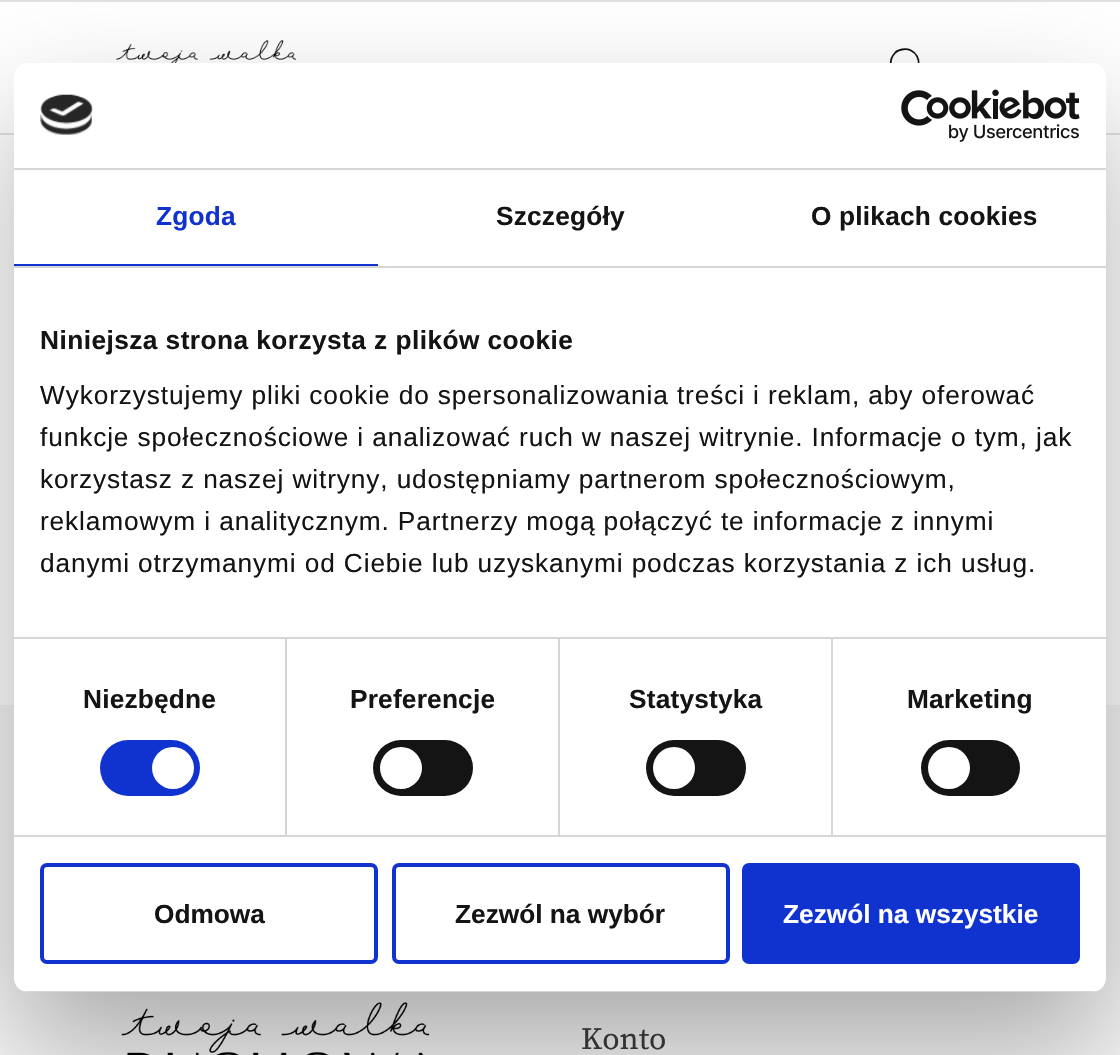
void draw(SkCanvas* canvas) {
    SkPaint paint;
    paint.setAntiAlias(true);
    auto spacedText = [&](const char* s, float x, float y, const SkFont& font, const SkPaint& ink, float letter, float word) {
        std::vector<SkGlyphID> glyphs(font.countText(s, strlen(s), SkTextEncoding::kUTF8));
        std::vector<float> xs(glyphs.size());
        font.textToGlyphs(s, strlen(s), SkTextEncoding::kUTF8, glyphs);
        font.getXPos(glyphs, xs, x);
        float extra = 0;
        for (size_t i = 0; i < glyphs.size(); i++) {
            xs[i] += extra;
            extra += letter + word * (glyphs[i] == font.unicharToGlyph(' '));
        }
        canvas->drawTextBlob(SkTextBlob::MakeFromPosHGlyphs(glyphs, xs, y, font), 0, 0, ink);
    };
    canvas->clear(0xFFFFFFFF);
    paint.setColor(0xFFE2E2E2);
    canvas->drawRect(SkRect::MakeXYWH(0, 0, 1120, 2), paint);
    canvas->drawRect(SkRect::MakeXYWH(0, 133, 1120, 2), paint);
    canvas->drawImageRect(SkImages::DeferredFromEncodedData(SkData::MakeFromFileName("img1.png")), SkRect::MakeXYWH(116, 40, 181, 23), SkSamplingOptions());
    paint.setStyle(SkPaint::kStroke_Style);
    paint.setStrokeWidth(1.8f);
    paint.setStrokeCap(SkPaint::kRound_Cap);
    paint.setStrokeJoin(SkPaint::kRound_Join);
    paint.setColor(0xFF131212);
    canvas->drawPath(SkPathBuilder().moveTo(922, 80.5f).lineTo(914.5f, 73).moveTo(914.5f, 73).cubicTo(924.5f, 63, 915.5f, 46.5f, 902, 49.5f).cubicTo(899.5f, 50, 896.5f, 51, 895, 53).cubicTo(882, 66.5f, 902, 86, 914.5f, 73).close().detach(), paint);
    paint.setStyle(SkPaint::kFill_Style);
    paint.setColor(0xFFF5F5F5);
    canvas->drawRect(SkRect::MakeXYWH(0, 705, 1120, 350), paint);
    canvas->drawImageRect(SkImages::DeferredFromEncodedData(SkData::MakeFromFileName("img4.png")), SkRect::MakeXYWH(121, 1002, 309, 53), SkSamplingOptions());
    paint.setColor(0x4D000000);
    paint.setMaskFilter(SkMaskFilter::MakeBlur(kNormal_SkBlurStyle, 59.5f));
    canvas->drawRoundRect(SkRect::MakeXYWH(14, 119, 1092, 929), 14, 14, paint);
    paint.setMaskFilter(nullptr);
    paint.setColor(0xFFFFFFFF);
    canvas->drawRoundRect(SkRect::MakeXYWH(14, 63, 1092, 929), 14, 14, paint);
    paint.setColor(0xFFD6D6D6);
    canvas->drawRect(SkRect::MakeXYWH(14, 168, 1092, 2), paint);
    canvas->drawImageRect(SkImages::DeferredFromEncodedData(SkData::MakeFromFileName("img2.png")), SkRect::MakeXYWH(40, 94, 53, 41), SkSamplingOptions());
    canvas->drawImageRect(SkImages::DeferredFromEncodedData(SkData::MakeFromFileName("img3.png")), SkRect::MakeXYWH(901, 89, 179, 53), SkSamplingOptions());
    canvas->drawRect(SkRect::MakeXYWH(14, 266, 1092, 2), paint);
    paint.setColor(0xFF1032CF);
    canvas->drawRect(SkRect::MakeXYWH(14, 264, 364, 2), paint);
    SkFont font1(fontMgr->matchFamilyStyle("Liberation Sans", SkFontStyle::Bold()), 26.25f);
    font1.setSubpixel(true);
    spacedText("Zgoda", 156, 225, font1, paint, 0.2f, 0);
    paint.setColor(0xFF141414);
    spacedText("Szczegóły", 496, 225, font1, paint, 0.2f, 0);
    spacedText("O plikach cookies", 811, 225, font1, paint, 0.2f, 0);
    paint.setColor(0xFFD6D6D6);
    canvas->drawRect(SkRect::MakeXYWH(14, 637, 1092, 2), paint);
    paint.setColor(0xFF141414);
    spacedText("Niniejsza strona korzysta z plików cookie", 40, 349, font1, paint, 0.45f, 0);
    SkFont font2(fontMgr->matchFamilyStyle("Liberation Sans", SkFontStyle::Normal()), 26.25f);
    font2.setSubpixel(true);
    spacedText("Wykorzystujemy pliki cookie do spersonalizowania treści i reklam, aby oferować", 40, 404, font2, paint, 0.88f, 0);
    spacedText("funkcje społecznościowe i analizować ruch w naszej witrynie. Informacje o tym, jak", 40, 446, font2, paint, 0.88f, 0);
    spacedText("korzystasz z naszej witryny, udostępniamy partnerom społecznościowym,", 40, 488, font2, paint, 0.88f, 0);
    spacedText("reklamowym i analitycznym. Partnerzy mogą połączyć te informacje z innymi", 40, 530, font2, paint, 0.88f, 0);
    spacedText("danymi otrzymanymi od Ciebie lub uzyskanymi podczas korzystania z ich usług.", 40, 572, font2, paint, 0.88f, 0);
    paint.setColor(0xFFD6D6D6);
    canvas->drawRect(SkRect::MakeXYWH(14, 835, 1092, 2), paint);
    canvas->drawRect(SkRect::MakeXYWH(285, 639, 2, 196), paint);
    paint.setColor(0xFF141414);
    spacedText("Niezbędne", 83, 708, font1, paint, 0.2f, 0);
    paint.setColor(0xFF1032CF);
    canvas->drawRoundRect(SkRect::MakeXYWH(100, 740, 100, 56), 28, 28, paint);
    paint.setColor(0xFFFFFFFF);
    canvas->drawCircle(173, 768, 21, paint);
    paint.setColor(0xFFD6D6D6);
    canvas->drawRect(SkRect::MakeXYWH(558, 639, 2, 196), paint);
    paint.setColor(0xFF141414);
    spacedText("Preferencje", 350, 708, font1, paint, 0.2f, 0);
    canvas->drawRoundRect(SkRect::MakeXYWH(373, 740, 100, 56), 28, 28, paint);
    paint.setColor(0xFFFFFFFF);
    canvas->drawCircle(401, 768, 21, paint);
    paint.setColor(0xFFD6D6D6);
    canvas->drawRect(SkRect::MakeXYWH(831, 639, 2, 196), paint);
    paint.setColor(0xFF141414);
    spacedText("Statystyka", 629, 708, font1, paint, 0.2f, 0);
    canvas->drawRoundRect(SkRect::MakeXYWH(646, 740, 100, 56), 28, 28, paint);
    paint.setColor(0xFFFFFFFF);
    canvas->drawCircle(674, 768, 21, paint);
    paint.setColor(0xFF141414);
    spacedText("Marketing", 907, 708, font1, paint, 0.2f, 0);
    canvas->drawRoundRect(SkRect::MakeXYWH(921, 740, 99, 56), 28, 28, paint);
    paint.setColor(0xFFFFFFFF);
    canvas->drawCircle(949, 768, 21, paint);
    canvas->save();
    canvas->clipPath(SkPathBuilder().moveTo(28, 63).lineTo(1092, 63).cubicTo(1099.5f, 63, 1106, 69.5f, 1106, 77).lineTo(1106, 978).cubicTo(1106, 985.5f, 1099.5f, 992, 1092, 992).lineTo(28, 992).cubicTo(20.5f, 992, 14, 985.5f, 14, 978).lineTo(14, 77).cubicTo(14, 69.5f, 20.5f, 63, 28, 63).close().detach(), true);
    paint.setColor(0xFFD6D6D6);
    canvas->drawRect(SkRect::MakeXYWH(23, 991, 1074, 1), paint);
    canvas->restore();
    paint.setStyle(SkPaint::kStroke_Style);
    paint.setStrokeWidth(4);
    paint.setStrokeCap(SkPaint::kButt_Cap);
    paint.setStrokeJoin(SkPaint::kMiter_Join);
    paint.setColor(0xFF1032CF);
    canvas->drawRoundRect(SkRect::MakeXYWH(42, 865, 334, 97), 5, 5, paint);
    paint.setStyle(SkPaint::kFill_Style);
    paint.setColor(0xFF141414);
    canvas->drawString("Odmowa", 154, 923, font1, paint);
    paint.setStyle(SkPaint::kStroke_Style);
    paint.setColor(0xFF1032CF);
    canvas->drawRoundRect(SkRect::MakeXYWH(394, 865, 334, 97), 5, 5, paint);
    paint.setStyle(SkPaint::kFill_Style);
    paint.setColor(0xFF141414);
    canvas->drawString("Zezwól na wybór", 455, 923, font1, paint);
    paint.setColor(0xFF1032CF);
    canvas->drawRoundRect(SkRect::MakeXYWH(744, 865, 334, 97), 5, 5, paint);
    paint.setStyle(SkPaint::kStroke_Style);
    canvas->drawRoundRect(SkRect::MakeXYWH(744, 865, 334, 97), 5, 5, paint);
    paint.setStyle(SkPaint::kFill_Style);
    paint.setColor(0xFFFFFFFF);
    canvas->drawString("Zezwól na wszystkie", 783, 923, font1, paint);
    SkFont font3(fontMgr->matchFamilyStyle("Source Serif 4", SkFontStyle::Normal()), 31);
    font3.setSubpixel(true);
    paint.setColor(0xFF333333);
    canvas->drawString("Konto", 581, 1049, font3, paint);
}
